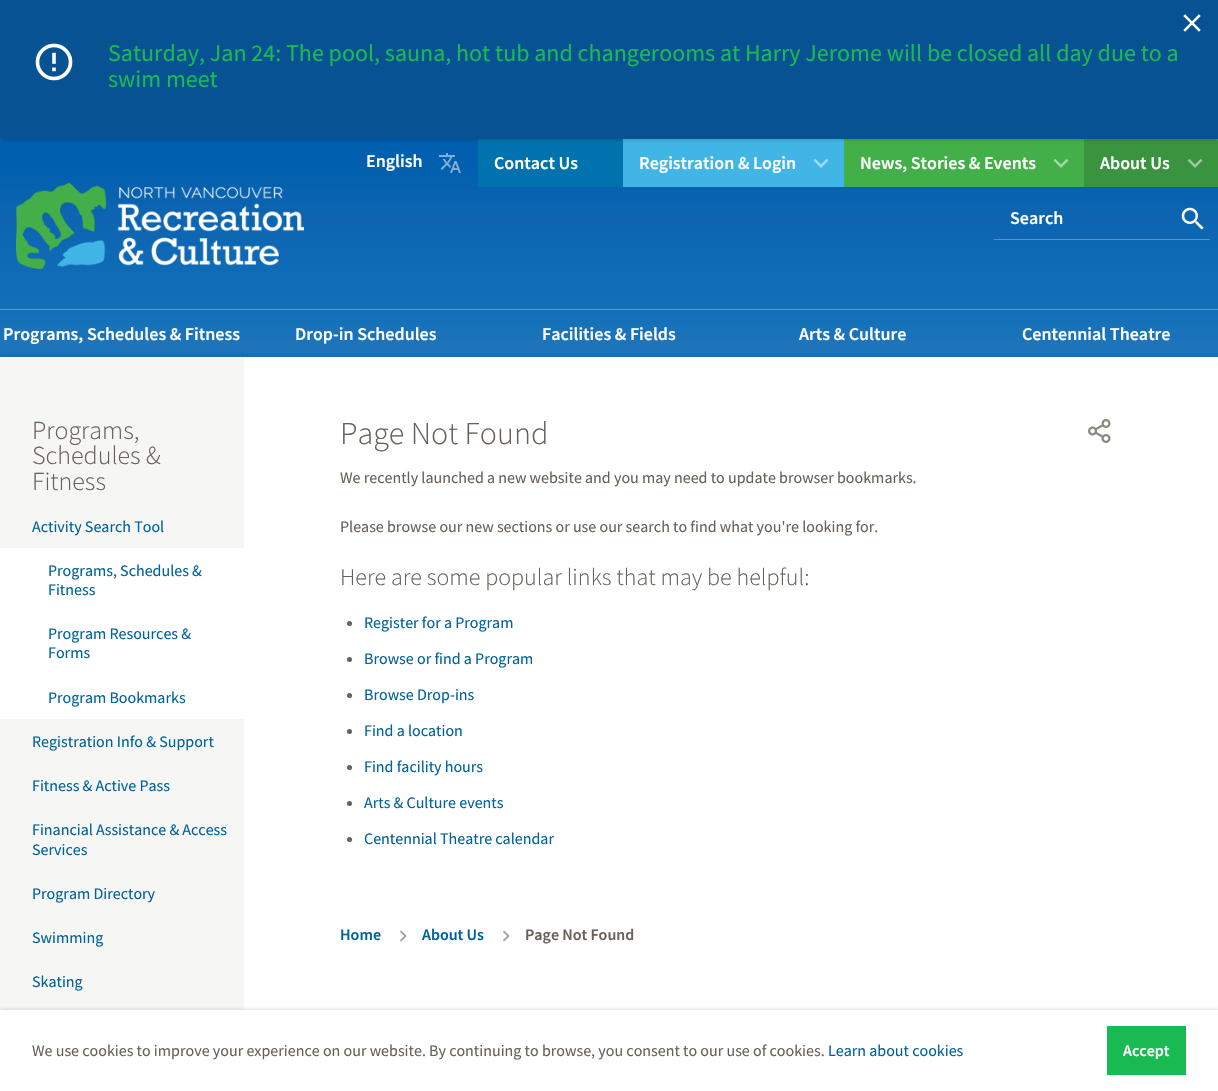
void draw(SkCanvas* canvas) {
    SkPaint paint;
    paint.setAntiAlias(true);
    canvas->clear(0xFFFFFFFF);
    canvas->drawImageRect(SkImages::DeferredFromEncodedData(SkData::MakeFromFileName("img1.png")), SkRect::MakeXYWH(0, 139, 1218, 218), SkSamplingOptions());
    paint.setColor(0xFF0073AE);
    canvas->drawRect(SkRect::MakeXYWH(478, 139, 145, 48), paint);
    paint.setColor(0xFF41B6E6);
    canvas->drawRect(SkRect::MakeXYWH(623, 139, 221, 48), paint);
    paint.setColor(0xFF43AF48);
    canvas->drawRect(SkRect::MakeXYWH(844, 139, 240, 48), paint);
    paint.setColor(0xFF3A933F);
    canvas->drawRect(SkRect::MakeXYWH(1084, 139, 134, 48), paint);
    paint.setColor(0x1A000000);
    paint.setMaskFilter(SkMaskFilter::MakeBlur(kNormal_SkBlurStyle, 1));
    canvas->drawRect(SkRect::MakeXYWH(2, 6, 1214, 135), paint);
    paint.setMaskFilter(nullptr);
    paint.setColor(0xFF075293);
    canvas->drawRect(SkRect::MakeXYWH(0, 0, 1218, 139), paint);
    canvas->drawImageRect(SkImages::DeferredFromEncodedData(SkData::MakeFromFileName("img2.png")), SkRect::MakeXYWH(1183, 14, 18, 18), SkSamplingOptions());
    canvas->drawImageRect(SkImages::DeferredFromEncodedData(SkData::MakeFromFileName("img3.png")), SkRect::MakeXYWH(35, 43, 38, 38), SkSamplingOptions());
    SkFont font1(fontMgr->matchFamilyStyle("Source Sans Pro", SkFontStyle::Normal()), 24);
    font1.setSubpixel(true);
    paint.setColor(0xFF1ABA53);
    canvas->drawString("Saturday, Jan 24: The pool, sauna, hot tub and changerooms at Harry Jerome will be closed all day due to a", 108, 61, font1, paint);
    canvas->drawString("swim meet", 108, 87, font1, paint);
    canvas->drawImageRect(SkImages::DeferredFromEncodedData(SkData::MakeFromFileName("img4.png")), SkRect::MakeXYWH(16, 183, 288, 86), SkSamplingOptions());
    SkFont font2(fontMgr->matchFamilyStyle("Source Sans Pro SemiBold", SkFontStyle(600, SkFontStyle::kNormal_Width, SkFontStyle::kUpright_Slant)), 18);
    font2.setSubpixel(true);
    paint.setColor(0xFFFFFFFF);
    canvas->drawString("English", 366, 167, font2, paint);
    canvas->drawImageRect(SkImages::DeferredFromEncodedData(SkData::MakeFromFileName("img5.png")), SkRect::MakeXYWH(439, 153, 22, 20), SkSamplingOptions());
    canvas->drawString("Contact Us", 494, 169, font2, paint);
    canvas->drawString("Registration & Login", 639, 169, font2, paint);
    canvas->drawImageRect(SkImages::DeferredFromEncodedData(SkData::MakeFromFileName("img6.png")), SkRect::MakeXYWH(813, 158, 16, 10), SkSamplingOptions());
    canvas->drawString("News, Stories & Events", 860, 169, font2, paint);
    canvas->drawImageRect(SkImages::DeferredFromEncodedData(SkData::MakeFromFileName("img7.png")), SkRect::MakeXYWH(1053, 158, 16, 10), SkSamplingOptions());
    canvas->drawString("About Us", 1100, 169, font2, paint);
    canvas->drawImageRect(SkImages::DeferredFromEncodedData(SkData::MakeFromFileName("img8.png")), SkRect::MakeXYWH(1187, 158, 16, 10), SkSamplingOptions());
    paint.setColor(0xFF5695CA);
    canvas->drawRect(SkRect::MakeXYWH(994, 239, 216, 1), paint);
    paint.setColor(0xFFFFFFFF);
    canvas->drawString("Search", 1010, 224, font2, paint);
    canvas->drawImageRect(SkImages::DeferredFromEncodedData(SkData::MakeFromFileName("img9.png")), SkRect::MakeXYWH(1181, 207, 23, 23), SkSamplingOptions());
    paint.setColor(0xFF5A9BCD);
    canvas->drawRect(SkRect::MakeXYWH(0, 309, 1218, 1), paint);
    paint.setColor(0xFFFFFFFF);
    canvas->drawString("Programs, Schedules & Fitness", 3, 340, font2, paint);
    canvas->drawString("Drop-in Schedules", 295, 340, font2, paint);
    canvas->drawString("Facilities & Fields", 542, 340, font2, paint);
    canvas->drawString("Arts & Culture", 799, 340, font2, paint);
    canvas->drawString("Centennial Theatre", 1022, 340, font2, paint);
    paint.setColor(0x26000000);
    paint.setMaskFilter(SkMaskFilter::MakeBlur(kNormal_SkBlurStyle, 2.5f));
    canvas->drawRect(SkRect::MakeXYWH(-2, 355, 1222, 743), paint);
    paint.setMaskFilter(nullptr);
    paint.setColor(0xFFFFFFFF);
    canvas->drawRect(SkRect::MakeXYWH(244, 357, 974, 653), paint);
    paint.setColor(0xFFF6F6F4);
    canvas->drawRect(SkRect::MakeXYWH(0, 357, 244, 191), paint);
    SkFont font3(fontMgr->matchFamilyStyle("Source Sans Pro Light", SkFontStyle(300, SkFontStyle::kNormal_Width, SkFontStyle::kUpright_Slant)), 26);
    font3.setSubpixel(true);
    paint.setColor(0xFF696158);
    canvas->drawString("Programs,", 32, 439, font3, paint);
    canvas->drawString("Schedules &", 32, 464, font3, paint);
    canvas->drawString("Fitness", 32, 490, font3, paint);
    SkFont font4(fontMgr->matchFamilyStyle("Source Sans Pro", SkFontStyle::Normal()), 16);
    font4.setSubpixel(true);
    paint.setColor(0xFF00629B);
    canvas->drawString("Activity Search Tool", 32, 532, font4, paint);
    paint.setColor(0xFFFFFFFF);
    canvas->drawRect(SkRect::MakeXYWH(0, 548, 244, 171), paint);
    paint.setColor(0xFF00629B);
    canvas->drawString("Programs, Schedules &", 48, 576, font4, paint);
    canvas->drawString("Fitness", 48, 595, font4, paint);
    canvas->drawString("Program Resources &", 48, 639, font4, paint);
    canvas->drawString("Forms", 48, 658, font4, paint);
    canvas->drawString("Program Bookmarks", 48, 703, font4, paint);
    paint.setColor(0xFFF6F6F4);
    canvas->drawRect(SkRect::MakeXYWH(0, 719, 244, 291), paint);
    paint.setColor(0xFF00629B);
    canvas->drawString("Registration Info & Support", 32, 747, font4, paint);
    canvas->drawString("Fitness & Active Pass", 32, 791, font4, paint);
    canvas->drawString("Financial Assistance & Access", 32, 835, font4, paint);
    canvas->drawString("Services", 32, 855, font4, paint);
    canvas->drawString("Program Directory", 32, 899, font4, paint);
    canvas->drawString("Swimming", 32, 943, font4, paint);
    canvas->drawString("Skating", 32, 987, font4, paint);
    SkFont font5(fontMgr->matchFamilyStyle("Source Sans Pro Light", SkFontStyle(300, SkFontStyle::kNormal_Width, SkFontStyle::kUpright_Slant)), 32);
    font5.setSubpixel(true);
    paint.setColor(0xFF696158);
    canvas->drawString("Page Not Found", 340, 444, font5, paint);
    canvas->drawImageRect(SkImages::DeferredFromEncodedData(SkData::MakeFromFileName("img10.png")), SkRect::MakeXYWH(1088, 419, 23, 24), SkSamplingOptions());
    canvas->drawString("We recently launched a new website and you may need to update browser bookmarks.", 340, 483, font4, paint);
    canvas->drawString("Please browse our new sections or use our search to find what you're looking for.", 340, 532, font4, paint);
    SkFont font6(fontMgr->matchFamilyStyle("Source Sans Pro Light", SkFontStyle(300, SkFontStyle::kNormal_Width, SkFontStyle::kUpright_Slant)), 24);
    font6.setSubpixel(true);
    canvas->drawString("Here are some popular links that may be helpful:", 340, 585, font6, paint);
    canvas->drawCircle(349.5f, 623.5f, 2.5f, paint);
    paint.setColor(0xFF00629B);
    canvas->drawString("Register for a Program", 364, 628, font4, paint);
    paint.setColor(0xFF696158);
    canvas->drawCircle(349.5f, 659.5f, 2.5f, paint);
    paint.setColor(0xFF00629B);
    canvas->drawString("Browse or find a Program", 364, 664, font4, paint);
    paint.setColor(0xFF696158);
    canvas->drawCircle(349.5f, 695.5f, 2.5f, paint);
    paint.setColor(0xFF00629B);
    canvas->drawString("Browse Drop-ins", 364, 700, font4, paint);
    paint.setColor(0xFF696158);
    canvas->drawCircle(349.5f, 731.5f, 2.5f, paint);
    paint.setColor(0xFF00629B);
    canvas->drawString("Find a location", 364, 736, font4, paint);
    paint.setColor(0xFF696158);
    canvas->drawCircle(349.5f, 767.5f, 2.5f, paint);
    paint.setColor(0xFF00629B);
    canvas->drawString("Find facility hours", 364, 772, font4, paint);
    paint.setColor(0xFF696158);
    canvas->drawCircle(349.5f, 803.5f, 2.5f, paint);
    paint.setColor(0xFF00629B);
    canvas->drawString("Arts & Culture events", 364, 808, font4, paint);
    paint.setColor(0xFF696158);
    canvas->drawCircle(349.5f, 839.5f, 2.5f, paint);
    paint.setColor(0xFF00629B);
    canvas->drawString("Centennial Theatre calendar", 364, 844, font4, paint);
    SkFont font7(fontMgr->matchFamilyStyle("Source Sans Pro SemiBold", SkFontStyle(600, SkFontStyle::kNormal_Width, SkFontStyle::kUpright_Slant)), 16);
    font7.setSubpixel(true);
    canvas->drawString("Home", 340, 940, font7, paint);
    canvas->drawImageRect(SkImages::DeferredFromEncodedData(SkData::MakeFromFileName("img11.png")), SkRect::MakeXYWH(400, 930, 7, 12), SkSamplingOptions());
    canvas->drawString("About Us", 422, 940, font7, paint);
    canvas->drawImageRect(SkImages::DeferredFromEncodedData(SkData::MakeFromFileName("img11.png")), SkRect::MakeXYWH(503, 930, 7, 12), SkSamplingOptions());
    paint.setColor(0xFF696158);
    canvas->drawString("Page Not Found", 525, 940, font7, paint);
    paint.setColor(0x33000000);
    paint.setMaskFilter(SkMaskFilter::MakeBlur(kNormal_SkBlurStyle, 2));
    canvas->drawRect(SkRect::MakeXYWH(0, 1010, 1218, 81), paint);
    paint.setMaskFilter(nullptr);
    paint.setColor(0xFFFFFFFF);
    canvas->drawRect(SkRect::MakeXYWH(0, 1010, 1218, 81), paint);
    paint.setColor(0xFF696158);
    canvas->drawString("We use cookies to improve your experience on our website. By continuing to browse, you consent to our use of cookies.", 32, 1056, font4, paint);
    paint.setColor(0xFF00629B);
    canvas->drawString("Learn about cookies", 828, 1056, font4, paint);
    paint.setColor(0xFF1ABA53);
    canvas->drawRect(SkRect::MakeXYWH(1107, 1026, 79, 49), paint);
    paint.setColor(0xFFFFFFFF);
    canvas->drawString("Accept", 1123, 1056, font7, paint);
}
